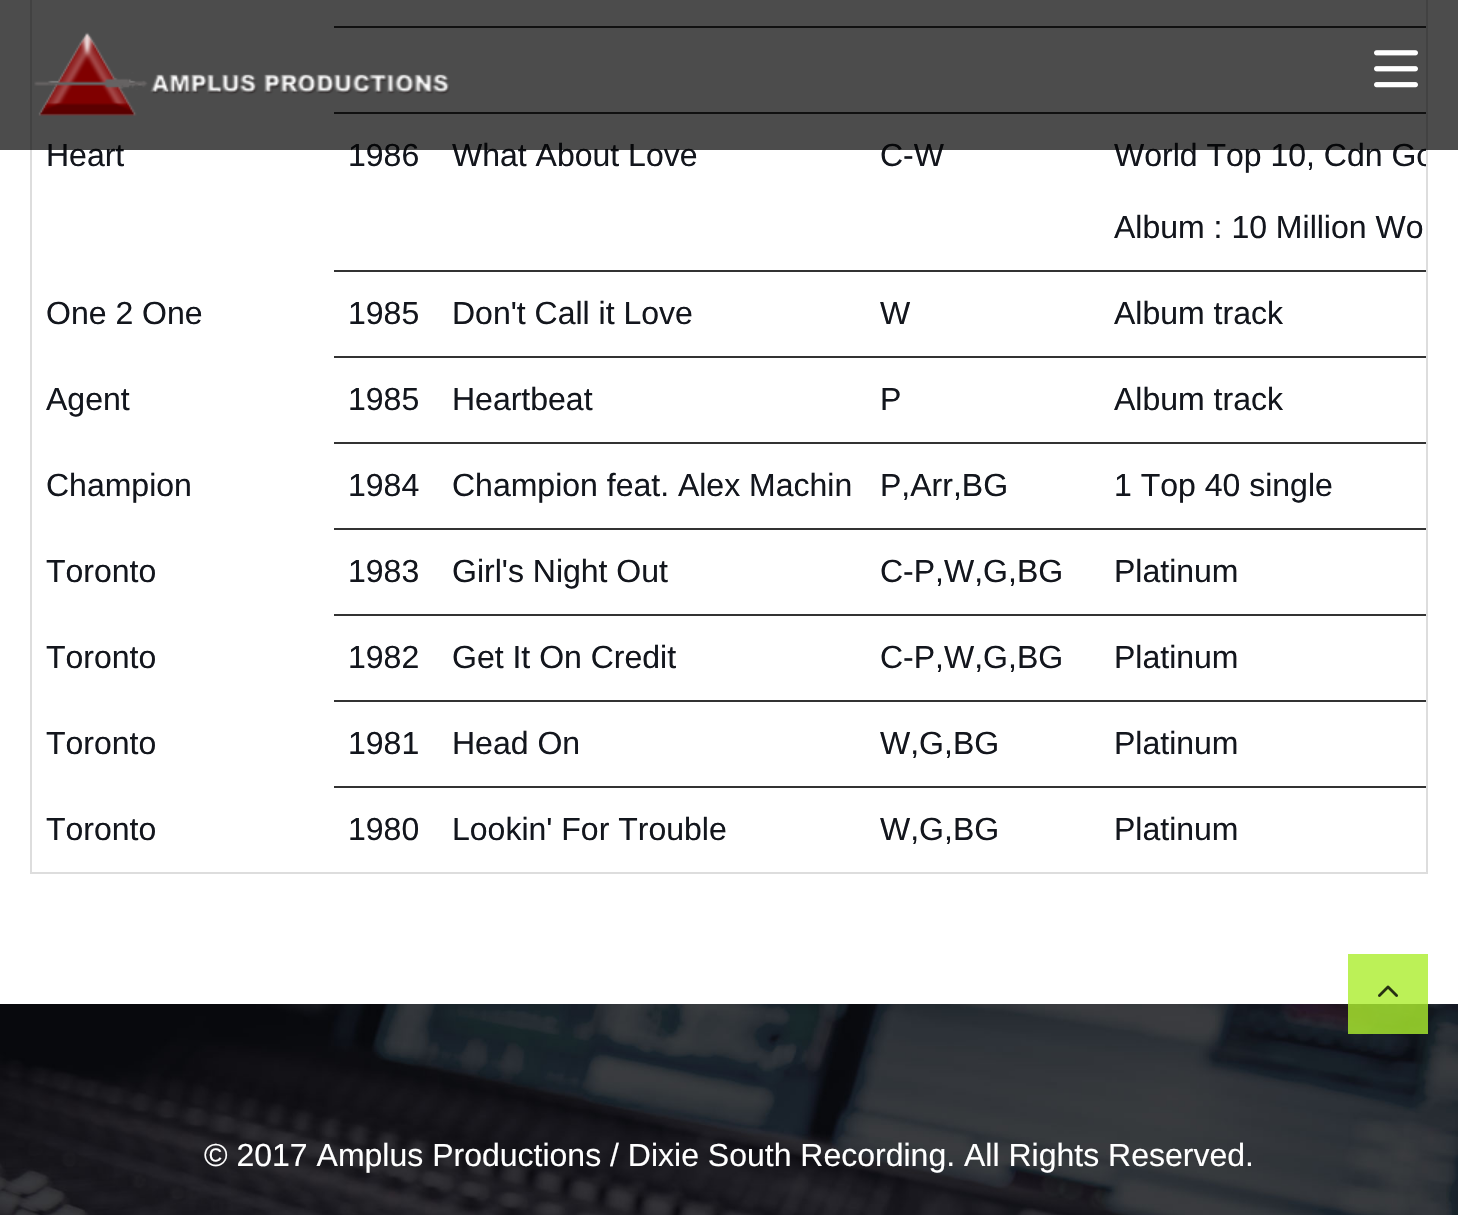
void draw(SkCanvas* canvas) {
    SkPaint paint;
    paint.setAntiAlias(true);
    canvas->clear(0xFFFFFFFF);
    paint.setStyle(SkPaint::kStroke_Style);
    paint.setStrokeWidth(2);
    paint.setColor(0xFFDDDDDD);
    canvas->drawRect(SkRect::MakeXYWH(31, -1, 1396, 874), paint);
    paint.setStyle(SkPaint::kFill_Style);
    paint.setColor(0xFF333333);
    canvas->drawRect(SkRect::MakeXYWH(332, 26, 1094, 2), paint);
    canvas->drawRect(SkRect::MakeXYWH(332, 112, 1094, 2), paint);
    paint.setColor(0xFFFFFFFF);
    canvas->drawRect(SkRect::MakeXYWH(332, 112, 2, 2), paint);
    canvas->drawRect(SkRect::MakeXYWH(332, 26, 2, 2), paint);
    SkFont font1(fontMgr->matchFamilyStyle("Liberation Sans", SkFontStyle::Normal()), 32);
    font1.setSubpixel(true);
    paint.setColor(0xFF13161D);
    canvas->drawString("Heart", 46, 166, font1, paint);
    canvas->drawString("1986", 348, 166, font1, paint);
    canvas->drawString("What About Love", 452, 166, font1, paint);
    canvas->drawString("C-W", 880, 166, font1, paint);
    canvas->save();
    canvas->clipRect(SkRect::MakeXYWH(32, 0, 1394, 872));
    canvas->drawString("World Top 10, Cdn Go", 1114, 166, font1, paint);
    canvas->restore();
    paint.setColor(0xB3000000);
    canvas->drawRect(SkRect::MakeXYWH(0, 0, 1458, 150), paint);
    canvas->drawImageRect(SkImages::DeferredFromEncodedData(SkData::MakeFromFileName("img1.png")), SkRect::MakeXYWH(34, 32, 416, 84), SkSamplingOptions());
    canvas->drawImageRect(SkImages::DeferredFromEncodedData(SkData::MakeFromFileName("img2.png")), SkRect::MakeXYWH(1374, 50, 44, 38), SkSamplingOptions());
    paint.setColor(0xFF333333);
    canvas->drawRect(SkRect::MakeXYWH(332, 270, 1094, 2), paint);
    paint.setColor(0xFFFFFFFF);
    canvas->drawRect(SkRect::MakeXYWH(332, 270, 2, 2), paint);
    paint.setColor(0xFF13161D);
    canvas->drawString("Album : 10 Million Wo", 1114, 238, font1, paint);
    paint.setColor(0xFF333333);
    canvas->drawRect(SkRect::MakeXYWH(332, 356, 1094, 2), paint);
    paint.setColor(0xFFFFFFFF);
    canvas->drawRect(SkRect::MakeXYWH(332, 356, 2, 2), paint);
    paint.setColor(0xFF13161D);
    canvas->drawString("One 2 One", 46, 324, font1, paint);
    canvas->drawString("1985", 348, 324, font1, paint);
    canvas->drawString("Don't Call it Love", 452, 324, font1, paint);
    canvas->drawString("W", 880, 324, font1, paint);
    canvas->drawString("Album track", 1114, 324, font1, paint);
    paint.setColor(0xFF333333);
    canvas->drawRect(SkRect::MakeXYWH(332, 442, 1094, 2), paint);
    paint.setColor(0xFFFFFFFF);
    canvas->drawRect(SkRect::MakeXYWH(332, 442, 2, 2), paint);
    paint.setColor(0xFF13161D);
    canvas->drawString("Agent", 46, 410, font1, paint);
    canvas->drawString("1985", 348, 410, font1, paint);
    canvas->drawString("Heartbeat", 452, 410, font1, paint);
    canvas->drawString("P", 880, 410, font1, paint);
    canvas->drawString("Album track", 1114, 410, font1, paint);
    paint.setColor(0xFF333333);
    canvas->drawRect(SkRect::MakeXYWH(332, 528, 1094, 2), paint);
    paint.setColor(0xFFFFFFFF);
    canvas->drawRect(SkRect::MakeXYWH(332, 528, 2, 2), paint);
    paint.setColor(0xFF13161D);
    canvas->drawString("Champion", 46, 496, font1, paint);
    canvas->drawString("1984", 348, 496, font1, paint);
    canvas->drawString("Champion feat. Alex Machin", 452, 496, font1, paint);
    canvas->drawString("P,Arr,BG", 880, 496, font1, paint);
    canvas->drawString("1 Top 40 single", 1114, 496, font1, paint);
    paint.setColor(0xFF333333);
    canvas->drawRect(SkRect::MakeXYWH(332, 614, 1094, 2), paint);
    paint.setColor(0xFFFFFFFF);
    canvas->drawRect(SkRect::MakeXYWH(332, 614, 2, 2), paint);
    paint.setColor(0xFF13161D);
    canvas->drawString("Toronto", 46, 582, font1, paint);
    canvas->drawString("1983", 348, 582, font1, paint);
    canvas->drawString("Girl's Night Out", 452, 582, font1, paint);
    canvas->drawString("C-P,W,G,BG", 880, 582, font1, paint);
    canvas->drawString("Platinum", 1114, 582, font1, paint);
    paint.setColor(0xFF333333);
    canvas->drawRect(SkRect::MakeXYWH(332, 700, 1094, 2), paint);
    paint.setColor(0xFFFFFFFF);
    canvas->drawRect(SkRect::MakeXYWH(332, 700, 2, 2), paint);
    paint.setColor(0xFF13161D);
    canvas->drawString("Toronto", 46, 668, font1, paint);
    canvas->drawString("1982", 348, 668, font1, paint);
    canvas->drawString("Get It On Credit", 452, 668, font1, paint);
    canvas->drawString("C-P,W,G,BG", 880, 668, font1, paint);
    canvas->drawString("Platinum", 1114, 668, font1, paint);
    paint.setColor(0xFF333333);
    canvas->drawRect(SkRect::MakeXYWH(332, 786, 1094, 2), paint);
    paint.setColor(0xFFFFFFFF);
    canvas->drawRect(SkRect::MakeXYWH(332, 786, 2, 2), paint);
    paint.setColor(0xFF13161D);
    canvas->drawString("Toronto", 46, 754, font1, paint);
    canvas->drawString("1981", 348, 754, font1, paint);
    canvas->drawString("Head On", 452, 754, font1, paint);
    canvas->drawString("W,G,BG", 880, 754, font1, paint);
    canvas->drawString("Platinum", 1114, 754, font1, paint);
    canvas->drawString("Toronto", 46, 840, font1, paint);
    canvas->drawString("1980", 348, 840, font1, paint);
    canvas->drawString("Lookin' For Trouble", 452, 840, font1, paint);
    canvas->drawString("W,G,BG", 880, 840, font1, paint);
    canvas->drawString("Platinum", 1114, 840, font1, paint);
    canvas->drawImageRect(SkImages::DeferredFromEncodedData(SkData::MakeFromFileName("img4.png")), SkRect::MakeXYWH(0, 1004, 1458, 211), SkSamplingOptions());
    paint.setColor(0xCCABEE2D);
    canvas->drawRect(SkRect::MakeXYWH(1348, 954, 80, 80), paint);
    canvas->drawImageRect(SkImages::DeferredFromEncodedData(SkData::MakeFromFileName("img3.png")), SkRect::MakeXYWH(1378, 985, 20, 12), SkSamplingOptions());
    paint.setColor(0xFFFFFFFF);
    canvas->drawString("© 2017 Amplus Productions / Dixie South Recording. All Rights Reserved.", 204, 1166, font1, paint);
}
